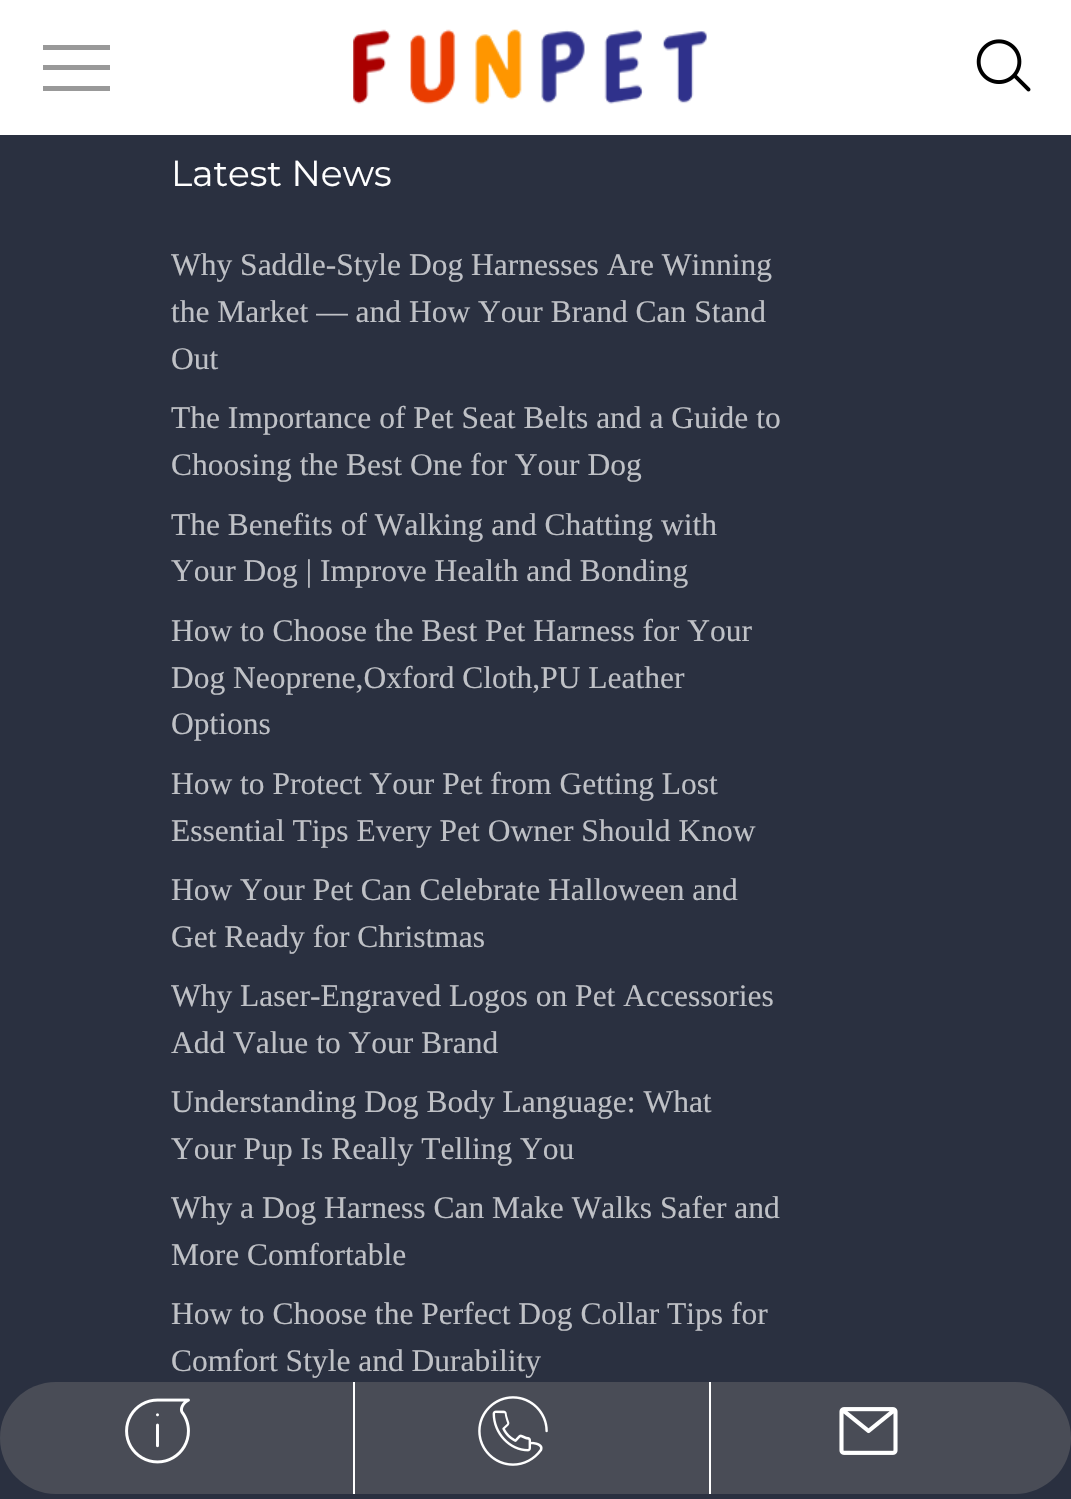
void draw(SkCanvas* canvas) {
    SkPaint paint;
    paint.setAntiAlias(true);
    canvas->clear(0xFF2A3040);
    paint.setColor(0xFFFFFFFF);
    canvas->drawRect(SkRect::MakeXYWH(0, 0, 1071, 135), paint);
    paint.setColor(0xFF999999);
    canvas->drawRect(SkRect::MakeXYWH(43, 45, 67, 5), paint);
    canvas->drawRect(SkRect::MakeXYWH(43, 65, 67, 5), paint);
    canvas->drawRect(SkRect::MakeXYWH(43, 86, 67, 5), paint);
    canvas->drawImageRect(SkImages::DeferredFromEncodedData(SkData::MakeFromFileName("img1.png")), SkRect::MakeXYWH(353, 29, 354, 76), SkSamplingOptions());
    canvas->drawImageRect(SkImages::DeferredFromEncodedData(SkData::MakeFromFileName("img2.png")), SkRect::MakeXYWH(976, 39, 55, 53), SkSamplingOptions());
    SkFont font1(fontMgr->matchFamilyStyle("Montserrat", SkFontStyle::Normal()), 36);
    font1.setSubpixel(true);
    paint.setColor(0xFFFFFFFF);
    canvas->drawString("Latest News", 171, 186, font1, paint);
    SkFont font2(fontMgr->matchFamilyStyle("Liberation Serif", SkFontStyle::Normal()), 31.5f);
    font2.setSubpixel(true);
    paint.setColor(0xFFBFC1C6);
    canvas->drawString("Why Saddle-Style Dog Harnesses Are Winning", 171, 275, font2, paint);
    canvas->drawString("the Market — and How Your Brand Can Stand", 171, 322, font2, paint);
    canvas->drawString("Out", 171, 369, font2, paint);
    canvas->drawString("The Importance of Pet Seat Belts and a Guide to", 171, 428, font2, paint);
    canvas->drawString("Choosing the Best One for Your Dog", 171, 475, font2, paint);
    canvas->drawString("The Benefits of Walking and Chatting with", 171, 535, font2, paint);
    canvas->drawString("Your Dog | Improve Health and Bonding", 171, 581, font2, paint);
    canvas->drawString("How to Choose the Best Pet Harness for Your", 171, 641, font2, paint);
    canvas->drawString("Dog Neoprene,Oxford Cloth,PU Leather", 171, 688, font2, paint);
    canvas->drawString("Options", 171, 734, font2, paint);
    canvas->drawString("How to Protect Your Pet from Getting Lost", 171, 794, font2, paint);
    canvas->drawString("Essential Tips Every Pet Owner Should Know", 171, 841, font2, paint);
    canvas->drawString("How Your Pet Can Celebrate Halloween and", 171, 900, font2, paint);
    canvas->drawString("Get Ready for Christmas", 171, 947, font2, paint);
    canvas->drawString("Why Laser-Engraved Logos on Pet Accessories", 171, 1006, font2, paint);
    canvas->drawString("Add Value to Your Brand", 171, 1053, font2, paint);
    canvas->drawString("Understanding Dog Body Language: What", 171, 1112, font2, paint);
    canvas->drawString("Your Pup Is Really Telling You", 171, 1159, font2, paint);
    canvas->drawString("Why a Dog Harness Can Make Walks Safer and", 171, 1218, font2, paint);
    canvas->drawString("More Comfortable", 171, 1265, font2, paint);
    canvas->drawString("How to Choose the Perfect Dog Collar Tips for", 171, 1324, font2, paint);
    canvas->drawString("Comfort Style and Durability", 171, 1371, font2, paint);
    paint.setColor(0xFF494C56);
    canvas->drawRoundRect(SkRect::MakeXYWH(0, 1382, 1071, 112), 56, 56, paint);
    canvas->drawImageRect(SkImages::DeferredFromEncodedData(SkData::MakeFromFileName("img3.png")), SkRect::MakeXYWH(125, 1398, 65, 66), SkSamplingOptions());
    paint.setColor(0xFFFFFFFF);
    canvas->drawRect(SkRect::MakeXYWH(709, 1382, 2, 112), paint);
    canvas->drawRect(SkRect::MakeXYWH(353, 1382, 2, 112), paint);
    canvas->drawImageRect(SkImages::DeferredFromEncodedData(SkData::MakeFromFileName("img4.png")), SkRect::MakeXYWH(478, 1396, 70, 70), SkSamplingOptions());
    canvas->drawImageRect(SkImages::DeferredFromEncodedData(SkData::MakeFromFileName("img5.png")), SkRect::MakeXYWH(839, 1407, 59, 48), SkSamplingOptions());
}
